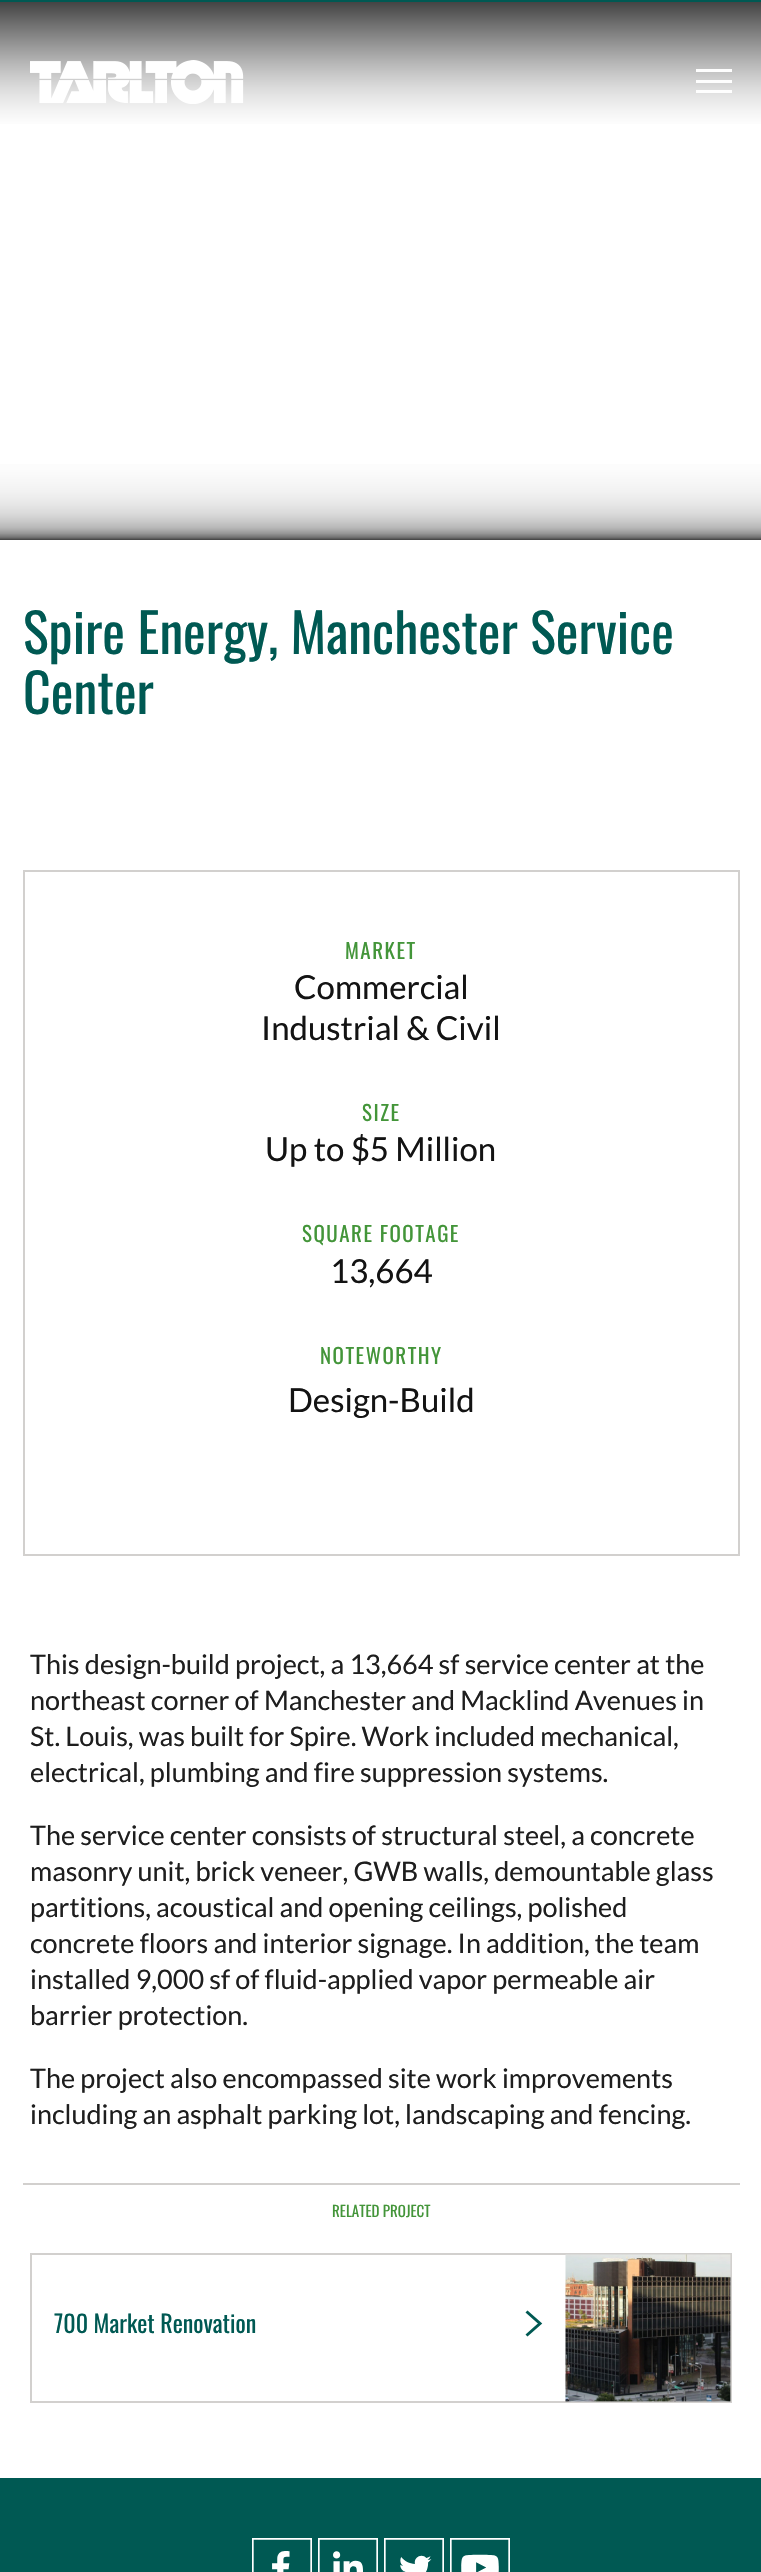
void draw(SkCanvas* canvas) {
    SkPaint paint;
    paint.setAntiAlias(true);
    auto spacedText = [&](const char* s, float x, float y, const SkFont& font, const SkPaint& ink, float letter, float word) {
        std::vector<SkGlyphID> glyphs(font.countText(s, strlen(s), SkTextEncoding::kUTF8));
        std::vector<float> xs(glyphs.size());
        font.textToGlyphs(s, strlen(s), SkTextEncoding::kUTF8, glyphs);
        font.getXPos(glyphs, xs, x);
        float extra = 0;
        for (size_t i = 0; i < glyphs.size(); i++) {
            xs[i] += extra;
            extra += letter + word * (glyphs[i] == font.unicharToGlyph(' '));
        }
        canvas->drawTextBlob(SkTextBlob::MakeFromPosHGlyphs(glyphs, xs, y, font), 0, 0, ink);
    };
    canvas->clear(0xFFFFFFFF);
    paint.setColor(0xFF005953);
    canvas->drawRect(SkRect::MakeXYWH(0, 0, 761, 2), paint);
    {
        const SkColor colors[] = {0xFF404040, 0xFF727272, 0xFF989898, 0xFFB7B7B7, 0xFFCACACA, 0xFFDBDBDB, 0xFFE7E7E7, 0xFFF1F1F1, 0xFFF7F7F7, 0xFFFCFCFC, 0xFFFEFEFE, 0xFFFFFFFF, 0xFFFFFFFF};
        const float stops[] = {0, 0.19f, 0.34f, 0.47f, 0.56f, 0.65f, 0.73f, 0.8f, 0.86f, 0.91f, 0.95f, 0.98f, 1};
        const SkPoint ends[] = {{381, 0}, {381, 135}};
        paint.setShader(SkGradientShader::MakeLinear(ends, colors, stops, 13, SkTileMode::kClamp));
        paint.setAlpha(255);
    }
    canvas->drawRect(SkRect::MakeXYWH(0, 2, 761, 122), paint);
    canvas->drawImageRect(SkImages::DeferredFromEncodedData(SkData::MakeFromFileName("img1.png")), SkRect::MakeXYWH(30, 60, 214, 44), SkSamplingOptions());
    paint.setShader(nullptr);
    paint.setColor(0xFFFEFEFE);
    canvas->drawRect(SkRect::MakeXYWH(696, 90, 36, 3), paint);
    canvas->drawRect(SkRect::MakeXYWH(696, 80, 36, 3), paint);
    canvas->drawRect(SkRect::MakeXYWH(696, 69, 36, 3), paint);
    {
        const SkColor colors[] = {0xFFFFFFFF, 0xFFFFFFFF, 0xFFFEFEFE, 0xFFFCFCFC, 0xFFF7F7F7, 0xFFF1F1F1, 0xFFE7E7E7, 0xFFDBDBDB, 0xFFCACACA, 0xFFB7B7B7, 0xFF989898, 0xFF727272, 0xFF404040};
        const float stops[] = {0, 0.19f, 0.34f, 0.47f, 0.56f, 0.65f, 0.73f, 0.8f, 0.86f, 0.91f, 0.95f, 0.98f, 1};
        const SkPoint ends[] = {{381, 405}, {381, 540}};
        paint.setShader(SkGradientShader::MakeLinear(ends, colors, stops, 13, SkTileMode::kClamp));
        paint.setAlpha(255);
    }
    canvas->drawRect(SkRect::MakeXYWH(0, 464, 761, 76), paint);
    SkFont font1(fontMgr->matchFamilyStyle("Oswald", SkFontStyle::Normal()), 54);
    font1.setSubpixel(true);
    paint.setShader(nullptr);
    paint.setColor(0xFF005953);
    canvas->drawString("Spire Energy, Manchester Service", 23, 654, font1, paint);
    canvas->drawString("Center", 23, 714, font1, paint);
    paint.setStyle(SkPaint::kStroke_Style);
    paint.setStrokeWidth(2);
    paint.setColor(0xFFD2D0CE);
    canvas->drawRect(SkRect::MakeXYWH(24, 871, 715, 684), paint);
    SkFont font2(fontMgr->matchFamilyStyle("Oswald", SkFontStyle::Normal()), 21);
    font2.setSubpixel(true);
    paint.setStyle(SkPaint::kFill_Style);
    paint.setColor(0xFF439539);
    spacedText("MARKET", 345, 959, font2, paint, 1.5f, 0);
    SkFont font3(fontMgr->matchFamilyStyle("Lato", SkFontStyle::Normal()), 33);
    font3.setSubpixel(true);
    paint.setColor(0xFF131313);
    canvas->drawString("Commercial", 294, 999, font3, paint);
    canvas->drawString("Industrial & Civil", 261, 1040, font3, paint);
    paint.setColor(0xFF439539);
    spacedText("SIZE", 362, 1121, font2, paint, 1.5f, 0);
    paint.setColor(0xFF131313);
    canvas->drawString("Up to $5 Million", 265, 1161, font3, paint);
    paint.setColor(0xFF439539);
    spacedText("SQUARE FOOTAGE", 302, 1242, font2, paint, 1.5f, 0);
    paint.setColor(0xFF131313);
    canvas->drawString("13,664", 330, 1283, font3, paint);
    paint.setColor(0xFF439539);
    spacedText("NOTEWORTHY", 320, 1364, font2, paint, 1.5f, 0);
    paint.setColor(0xFF131313);
    canvas->drawString("Design-Build", 288, 1412, font3, paint);
    SkFont font4(fontMgr->matchFamilyStyle("Lato", SkFontStyle::Normal()), 27);
    font4.setSubpixel(true);
    paint.setColor(0xFF1E1E1E);
    canvas->drawString("This design-build project, a 13,664 sf service center at the", 30, 1674, font4, paint);
    canvas->drawString("northeast corner of Manchester and Macklind Avenues in", 30, 1710, font4, paint);
    canvas->drawString("St. Louis, was built for Spire. Work included mechanical,", 30, 1746, font4, paint);
    canvas->drawString("electrical, plumbing and fire suppression systems.", 30, 1782, font4, paint);
    canvas->drawString("The service center consists of structural steel, a concrete", 30, 1845, font4, paint);
    canvas->drawString("masonry unit, brick veneer, GWB walls, demountable glass", 30, 1881, font4, paint);
    canvas->drawString("partitions, acoustical and opening ceilings, polished", 30, 1917, font4, paint);
    canvas->drawString("concrete floors and interior signage. In addition, the team", 30, 1953, font4, paint);
    canvas->drawString("installed 9,000 sf of fluid-applied vapor permeable air", 30, 1989, font4, paint);
    canvas->drawString("barrier protection.", 30, 2025, font4, paint);
    canvas->drawString("The project also encompassed site work improvements", 30, 2088, font4, paint);
    canvas->drawString("including an asphalt parking lot, landscaping and fencing.", 30, 2124, font4, paint);
    paint.setColor(0xFFD2D0CE);
    canvas->drawRect(SkRect::MakeXYWH(23, 2183, 717, 2), paint);
    SkFont font5(fontMgr->matchFamilyStyle("Oswald", SkFontStyle::Normal()), 15);
    font5.setSubpixel(true);
    paint.setColor(0xFF439539);
    canvas->drawString("RELATED PROJECT", 332, 2217, font5, paint);
    paint.setStyle(SkPaint::kStroke_Style);
    paint.setColor(0xFFD2D0CE);
    canvas->drawRect(SkRect::MakeXYWH(31, 2254, 700, 148), paint);
    SkFont font6(fontMgr->matchFamilyStyle("Oswald", SkFontStyle::Normal()), 24);
    font6.setSubpixel(true);
    paint.setStyle(SkPaint::kFill_Style);
    paint.setColor(0xFF005953);
    canvas->drawString("700 Market Renovation", 54, 2333, font6, paint);
    paint.setStyle(SkPaint::kStroke_Style);
    paint.setStrokeWidth(3);
    canvas->drawPath(SkPathBuilder().moveTo(526.5f, 2335.5f).lineTo(540, 2323.5f).lineTo(526.5f, 2311.5f).detach(), paint);
    canvas->drawImageRect(SkImages::DeferredFromEncodedData(SkData::MakeFromFileName("img2.png")), SkRect::MakeXYWH(565, 2254, 166, 148), SkSamplingOptions());
    paint.setStyle(SkPaint::kFill_Style);
    canvas->drawRect(SkRect::MakeXYWH(0, 2478, 761, 94), paint);
    canvas->drawImageRect(SkImages::DeferredFromEncodedData(SkData::MakeFromFileName("img3.png")), SkRect::MakeXYWH(252, 2538, 60, 34), SkSamplingOptions());
    canvas->drawImageRect(SkImages::DeferredFromEncodedData(SkData::MakeFromFileName("img4.png")), SkRect::MakeXYWH(318, 2538, 60, 34), SkSamplingOptions());
    canvas->drawImageRect(SkImages::DeferredFromEncodedData(SkData::MakeFromFileName("img5.png")), SkRect::MakeXYWH(384, 2538, 60, 34), SkSamplingOptions());
    canvas->drawImageRect(SkImages::DeferredFromEncodedData(SkData::MakeFromFileName("img6.png")), SkRect::MakeXYWH(450, 2538, 60, 34), SkSamplingOptions());
}
